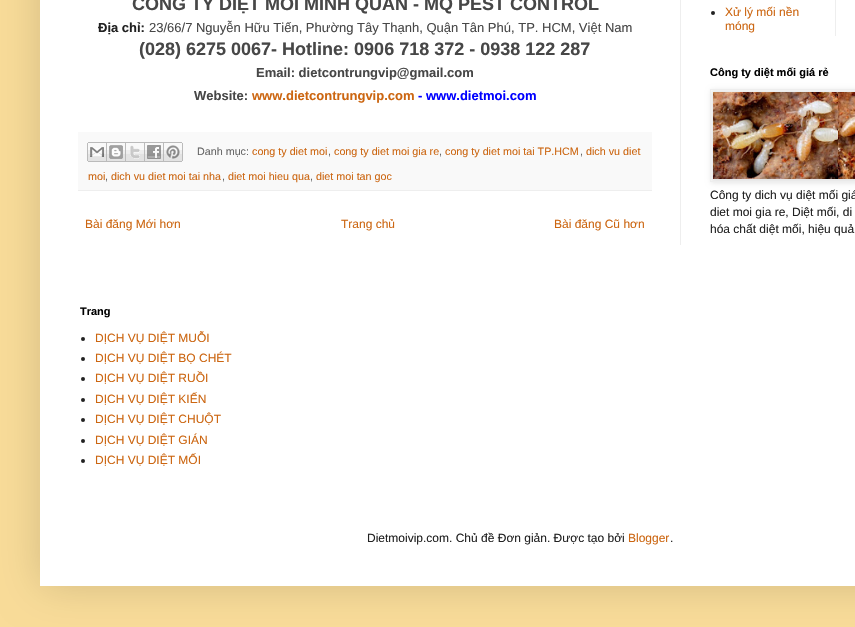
void draw(SkCanvas* canvas) {
    SkPaint paint;
    paint.setAntiAlias(true);
    canvas->clear(0xFFF9DC99);
    paint.setColor(0x26000000);
    paint.setMaskFilter(SkMaskFilter::MakeBlur(kNormal_SkBlurStyle, 20));
    canvas->drawRect(SkRect::MakeXYWH(40, -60, 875, 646), paint);
    paint.setMaskFilter(nullptr);
    paint.setColor(0xFFFFFFFF);
    canvas->drawRect(SkRect::MakeXYWH(40, 0, 815, 586), paint);
    SkFont font1(fontMgr->matchFamilyStyle("Liberation Sans", SkFontStyle::Bold()), 18);
    font1.setSubpixel(true);
    paint.setColor(0xFF474747);
    canvas->drawString("CÔNG TY DIỆT MỐI MINH QUÂN - MQ PEST CONTROL", 132, 10, font1, paint);
    SkFont font2(fontMgr->matchFamilyStyle("Liberation Sans", SkFontStyle::Bold()), 13);
    font2.setSubpixel(true);
    paint.setColor(0xFF222222);
    canvas->drawString("Địa chỉ:", 98, 32, font2, paint);
    SkFont font3(fontMgr->matchFamilyStyle("Liberation Sans", SkFontStyle::Normal()), 13);
    font3.setSubpixel(true);
    paint.setColor(0xFF474747);
    canvas->drawString("23/66/7 Nguyễn Hữu Tiến, Phường Tây Thạnh, Quận Tân Phú, TP. HCM, Việt Nam", 149, 32, font3, paint);
    canvas->drawString("(028) 6275 0067- Hotline: 0906 718 372 - 0938 122 287", 139, 55, font1, paint);
    canvas->drawString("Email: dietcontrungvip@gmail.com", 256, 77, font2, paint);
    canvas->drawString("Website:", 194, 100, font2, paint);
    paint.setColor(0xFFCC6611);
    canvas->drawString("www.dietcontrungvip.com", 252, 100, font2, paint);
    paint.setColor(0xFF0000FF);
    canvas->drawString("- www.dietmoi.com", 418, 100, font2, paint);
    paint.setColor(0xFFF9F9F9);
    canvas->drawRect(SkRect::MakeXYWH(78, 132, 574, 58), paint);
    paint.setColor(0xFFEEEEEE);
    canvas->drawRect(SkRect::MakeXYWH(78, 190, 574, 1), paint);
    canvas->drawImageRect(SkImages::DeferredFromEncodedData(SkData::MakeFromFileName("img1.png")), SkRect::MakeXYWH(87, 142, 20, 20), SkSamplingOptions());
    canvas->drawImageRect(SkImages::DeferredFromEncodedData(SkData::MakeFromFileName("img2.png")), SkRect::MakeXYWH(107, 142, 19, 20), SkSamplingOptions());
    canvas->drawImageRect(SkImages::DeferredFromEncodedData(SkData::MakeFromFileName("img3.png")), SkRect::MakeXYWH(126, 142, 19, 20), SkSamplingOptions());
    canvas->drawImageRect(SkImages::DeferredFromEncodedData(SkData::MakeFromFileName("img4.png")), SkRect::MakeXYWH(145, 142, 19, 20), SkSamplingOptions());
    canvas->drawImageRect(SkImages::DeferredFromEncodedData(SkData::MakeFromFileName("img5.png")), SkRect::MakeXYWH(164, 142, 19, 20), SkSamplingOptions());
    SkFont font4(fontMgr->matchFamilyStyle("Liberation Sans", SkFontStyle::Normal()), 10.75f);
    font4.setSubpixel(true);
    paint.setColor(0xFF666666);
    canvas->drawString("Danh mục:", 197, 155, font4, paint);
    paint.setColor(0xFFCC6611);
    canvas->drawString("cong ty diet moi", 252, 155, font4, paint);
    paint.setColor(0xFF666666);
    canvas->drawString(",", 328, 155, font4, paint);
    paint.setColor(0xFFCC6611);
    canvas->drawString("cong ty diet moi gia re", 334, 155, font4, paint);
    paint.setColor(0xFF666666);
    canvas->drawString(",", 439, 155, font4, paint);
    paint.setColor(0xFFCC6611);
    canvas->drawString("cong ty diet moi tai TP.HCM", 445, 155, font4, paint);
    paint.setColor(0xFF666666);
    canvas->drawString(",", 580, 155, font4, paint);
    paint.setColor(0xFFCC6611);
    canvas->drawString("dich vu diet", 586, 155, font4, paint);
    canvas->drawString("moi", 88, 180, font4, paint);
    paint.setColor(0xFF666666);
    canvas->drawString(",", 105, 180, font4, paint);
    paint.setColor(0xFFCC6611);
    canvas->drawString("dich vu diet moi tai nha", 111, 180, font4, paint);
    paint.setColor(0xFF666666);
    canvas->drawString(",", 222, 180, font4, paint);
    paint.setColor(0xFFCC6611);
    canvas->drawString("diet moi hieu qua", 228, 180, font4, paint);
    paint.setColor(0xFF666666);
    canvas->drawString(",", 310, 180, font4, paint);
    paint.setColor(0xFFCC6611);
    canvas->drawString("diet moi tan goc", 316, 180, font4, paint);
    SkFont font5(fontMgr->matchFamilyStyle("Liberation Sans", SkFontStyle::Normal()), 12);
    font5.setSubpixel(true);
    canvas->drawString("Bài đăng Mới hơn", 85, 228, font5, paint);
    canvas->drawString("Trang chủ", 341, 228, font5, paint);
    canvas->drawString("Bài đăng Cũ hơn", 554, 228, font5, paint);
    paint.setColor(0xFF222222);
    canvas->drawCircle(713, 13, 2, paint);
    paint.setColor(0xFFCC6611);
    canvas->drawString("Xử lý mối nền", 725, 16, font5, paint);
    canvas->drawString("móng", 725, 30, font5, paint);
    paint.setColor(0xFFEEEEEE);
    canvas->drawRect(SkRect::MakeXYWH(835, 0, 1, 36), paint);
    SkFont font6(fontMgr->matchFamilyStyle("Liberation Sans", SkFontStyle::Bold()), 11);
    font6.setSubpixel(true);
    paint.setColor(0xFF000000);
    canvas->drawString("Công ty diệt mối giá rẻ", 710, 76, font6, paint);
    paint.setColor(0x1A000000);
    paint.setMaskFilter(SkMaskFilter::MakeBlur(kNormal_SkBlurStyle, 2.5f));
    canvas->drawRect(SkRect::MakeXYWH(711, 90, 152, 93), paint);
    paint.setMaskFilter(nullptr);
    paint.setStyle(SkPaint::kStroke_Style);
    paint.setStrokeWidth(1);
    paint.setColor(0xFFEEEEEE);
    canvas->drawRect(SkRect::MakeXYWH(710.5f, 89.5f, 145, 92), paint);
    canvas->drawImageRect(SkImages::DeferredFromEncodedData(SkData::MakeFromFileName("img6.png")), SkRect::MakeXYWH(713, 92, 142, 87), SkSamplingOptions());
    paint.setStyle(SkPaint::kFill_Style);
    paint.setColor(0xFF222222);
    canvas->drawString("Công ty dich vụ diệt mối giá", 710, 199, font5, paint);
    canvas->drawString("diet moi gia re, Diệt mối, di", 710, 216, font5, paint);
    canvas->drawString("hóa chất diệt mối, hiệu quả", 710, 233, font5, paint);
    paint.setColor(0xFFEEEEEE);
    canvas->drawRect(SkRect::MakeXYWH(680, 0, 1, 245), paint);
    paint.setColor(0xFF000000);
    canvas->drawString("Trang", 80, 315, font6, paint);
    paint.setColor(0xFF222222);
    canvas->drawCircle(83, 339, 2, paint);
    paint.setColor(0xFFCC6611);
    canvas->drawString("DỊCH VỤ DIỆT MUỖI", 95, 342, font5, paint);
    paint.setColor(0xFF222222);
    canvas->drawCircle(83, 359, 2, paint);
    paint.setColor(0xFFCC6611);
    canvas->drawString("DỊCH VỤ DIỆT BỌ CHÉT", 95, 362, font5, paint);
    paint.setColor(0xFF222222);
    canvas->drawCircle(83, 379, 2, paint);
    paint.setColor(0xFFCC6611);
    canvas->drawString("DỊCH VỤ DIỆT RUỒI", 95, 382, font5, paint);
    paint.setColor(0xFF222222);
    canvas->drawCircle(83, 400, 2, paint);
    paint.setColor(0xFFCC6611);
    canvas->drawString("DỊCH VỤ DIỆT KIẾN", 95, 403, font5, paint);
    paint.setColor(0xFF222222);
    canvas->drawCircle(83, 420, 2, paint);
    paint.setColor(0xFFCC6611);
    canvas->drawString("DỊCH VỤ DIỆT CHUỘT", 95, 423, font5, paint);
    paint.setColor(0xFF222222);
    canvas->drawCircle(83, 441, 2, paint);
    paint.setColor(0xFFCC6611);
    canvas->drawString("DỊCH VỤ DIỆT GIÁN", 95, 444, font5, paint);
    paint.setColor(0xFF222222);
    canvas->drawCircle(83, 461, 2, paint);
    paint.setColor(0xFFCC6611);
    canvas->drawString("DỊCH VỤ DIỆT MỐI", 95, 464, font5, paint);
    paint.setColor(0xFF222222);
    canvas->drawString("Dietmoivip.com. Chủ đề Đơn giản. Được tạo bởi", 367, 542, font5, paint);
    paint.setColor(0xFFCC6611);
    canvas->drawString("Blogger", 628, 542, font5, paint);
    paint.setColor(0xFF222222);
    canvas->drawString(".", 670, 542, font5, paint);
}
